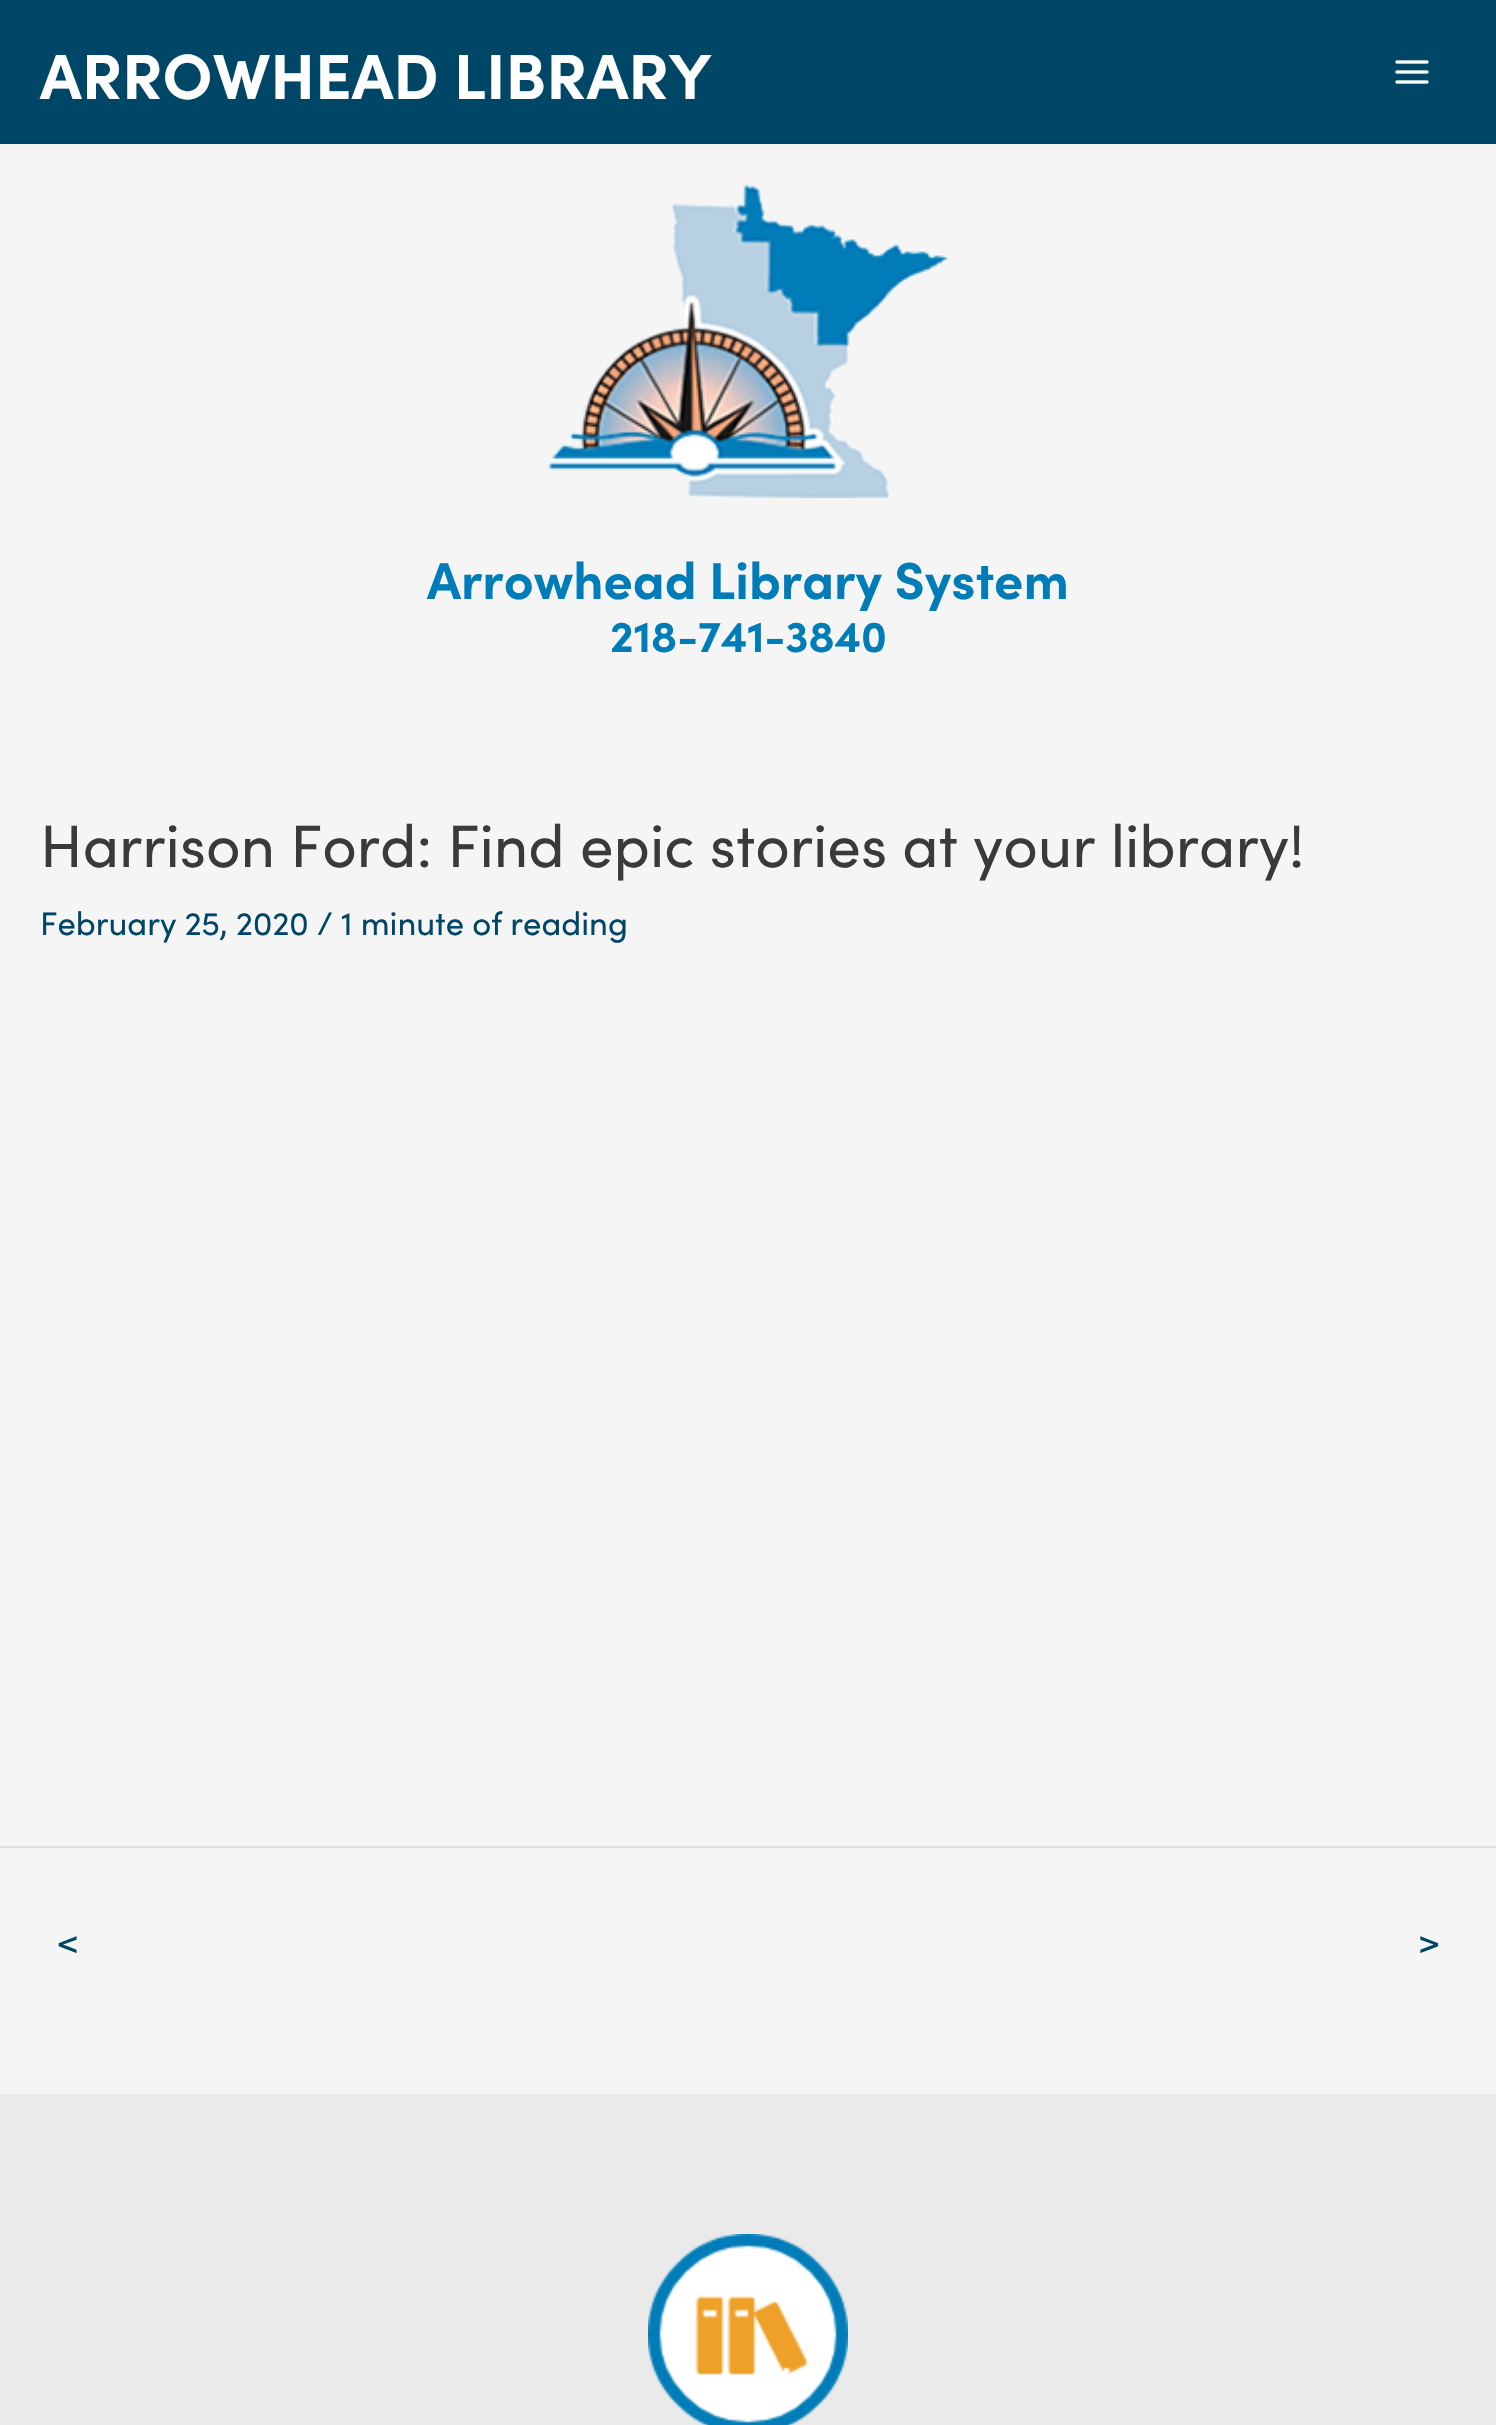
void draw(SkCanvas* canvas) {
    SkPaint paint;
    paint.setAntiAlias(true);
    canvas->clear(0xFFF5F5F5);
    paint.setColor(0xFF004666);
    canvas->drawRect(SkRect::MakeXYWH(0, 0, 1496, 144), paint);
    SkFont font1(fontMgr->matchFamilyStyle("Sofia", SkFontStyle::Bold()), 63.75f);
    font1.setSubpixel(true);
    paint.setColor(0xFFFFFFFF);
    canvas->drawString("ARROWHEAD LIBRARY", 40, 99, font1, paint);
    canvas->drawImageRect(SkImages::DeferredFromEncodedData(SkData::MakeFromFileName("img1.png")), SkRect::MakeXYWH(1395, 60, 34, 24), SkSamplingOptions());
    canvas->drawImageRect(SkImages::DeferredFromEncodedData(SkData::MakeFromFileName("img2.png")), SkRect::MakeXYWH(548, 184, 400, 314), SkSamplingOptions());
    SkFont font2(fontMgr->matchFamilyStyle("Sofia", SkFontStyle::Bold()), 52);
    font2.setSubpixel(true);
    paint.setColor(0xFF007DB8);
    canvas->drawString("Arrowhead Library System", 427, 599, font2, paint);
    SkFont font3(fontMgr->matchFamilyStyle("Sofia", SkFontStyle::Bold()), 44);
    font3.setSubpixel(true);
    canvas->drawString("218-741-3840", 610, 652, font3, paint);
    SkFont font4(fontMgr->matchFamilyStyle("Sofia", SkFontStyle::Normal()), 60);
    font4.setSubpixel(true);
    paint.setColor(0xFF3A3A3A);
    canvas->drawString("Harrison Ford: Find epic stories at your library!", 40, 867, font4, paint);
    SkFont font5(fontMgr->matchFamilyStyle("Sofia", SkFontStyle::Normal()), 32.8f);
    font5.setSubpixel(true);
    paint.setColor(0xFF004666);
    canvas->drawString("February 25, 2020 / 1 minute of reading", 40, 935, font5, paint);
    paint.setColor(0xFFDDDDDD);
    canvas->drawRect(SkRect::MakeXYWH(0, 1846, 1496, 2), paint);
    SkFont font6(fontMgr->matchFamilyStyle("Sofia", SkFontStyle::Normal()), 35);
    font6.setSubpixel(true);
    paint.setColor(0xFF004666);
    canvas->drawString("<", 57, 1954, font6, paint);
    canvas->drawString(">", 1418, 1954, font6, paint);
    paint.setColor(0xFFEAEAEA);
    canvas->drawRect(SkRect::MakeXYWH(0, 2094, 1496, 331), paint);
    canvas->drawImageRect(SkImages::DeferredFromEncodedData(SkData::MakeFromFileName("img3.png")), SkRect::MakeXYWH(648, 2234, 200, 191), SkSamplingOptions());
}
